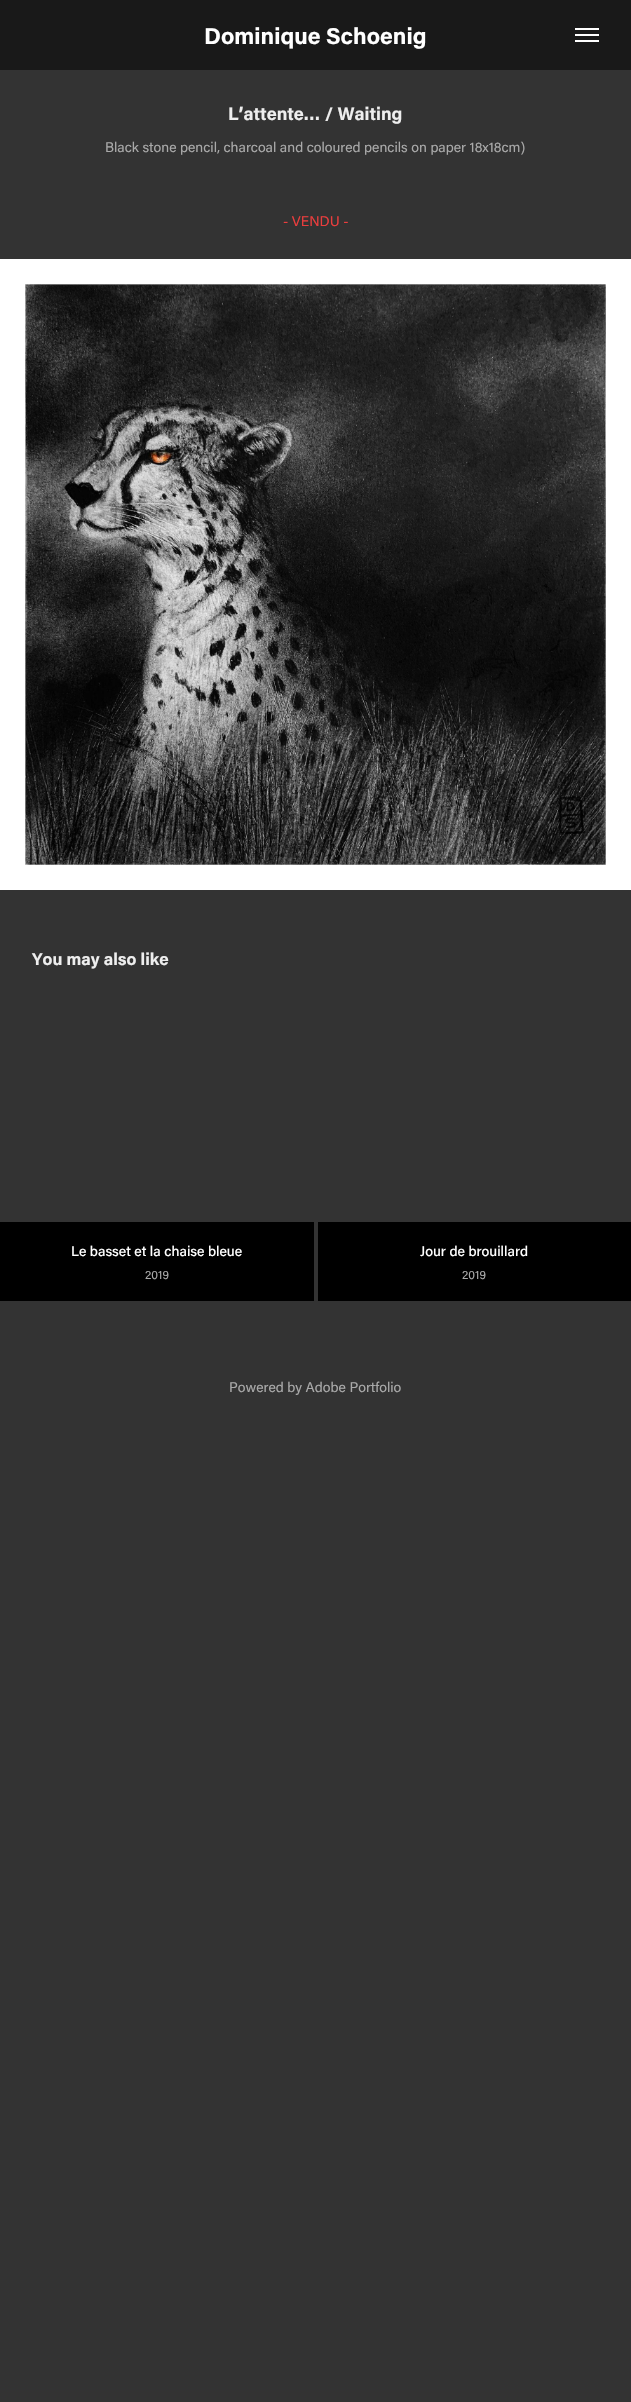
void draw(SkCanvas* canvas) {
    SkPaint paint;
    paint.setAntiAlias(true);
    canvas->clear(0xFF333333);
    paint.setColor(0xFF191919);
    canvas->drawRect(SkRect::MakeXYWH(0, 0, 631, 70), paint);
    SkFont font1(fontMgr->matchFamilyStyle("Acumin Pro", SkFontStyle::Bold()), 23);
    font1.setSubpixel(true);
    paint.setColor(0xFFFFFFFF);
    canvas->drawString("Dominique Schoenig", 204, 44, font1, paint);
    canvas->drawRect(SkRect::MakeXYWH(575, 28, 24, 2), paint);
    canvas->drawRect(SkRect::MakeXYWH(575, 34, 24, 2), paint);
    canvas->drawRect(SkRect::MakeXYWH(575, 40, 24, 2), paint);
    SkFont font2(fontMgr->matchFamilyStyle("Acumin Pro", SkFontStyle::Bold()), 18);
    font2.setSubpixel(true);
    paint.setColor(0xFFEEEEEE);
    canvas->drawString("L’attente… / Waiting", 228, 120, font2, paint);
    SkFont font3(fontMgr->matchFamilyStyle("Acumin Pro", SkFontStyle::Normal()), 14);
    font3.setSubpixel(true);
    paint.setColor(0xFFA9A9A9);
    canvas->drawString("Black stone pencil, charcoal and coloured pencils on paper 18x18cm)", 105, 152, font3, paint);
    paint.setColor(0xFFEA3D3D);
    canvas->drawString("- VENDU -", 283, 226, font3, paint);
    canvas->drawImageRect(SkImages::DeferredFromEncodedData(SkData::MakeFromFileName("img1.png")), SkRect::MakeXYWH(0, 259, 631, 631), SkSamplingOptions());
    SkFont font4(fontMgr->matchFamilyStyle("Acumin Pro", SkFontStyle::Bold()), 17);
    font4.setSubpixel(true);
    paint.setColor(0xFFEEEEEE);
    canvas->drawString("You may also like", 32, 965, font4, paint);
    paint.setColor(0xFF000000);
    canvas->drawRect(SkRect::MakeXYWH(0, 1222, 314, 79), paint);
    SkFont font5(fontMgr->matchFamilyStyle("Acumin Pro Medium", SkFontStyle(500, SkFontStyle::kNormal_Width, SkFontStyle::kUpright_Slant)), 14);
    font5.setSubpixel(true);
    paint.setColor(0xFFFFFFFF);
    canvas->drawString("Le basset et la chaise bleue", 71, 1256, font5, paint);
    SkFont font6(fontMgr->matchFamilyStyle("Acumin Pro", SkFontStyle::Normal()), 12);
    font6.setSubpixel(true);
    paint.setColor(0xFFA9A9A9);
    canvas->drawString("2019", 145, 1279, font6, paint);
    paint.setColor(0xFF000000);
    canvas->drawRect(SkRect::MakeXYWH(318, 1222, 313, 79), paint);
    paint.setColor(0xFFFFFFFF);
    canvas->drawString("Jour de brouillard", 420, 1256, font5, paint);
    paint.setColor(0xFFA9A9A9);
    canvas->drawString("2019", 462, 1279, font6, paint);
    canvas->drawString("Powered by Adobe Portfolio", 229, 1392, font3, paint);
}
